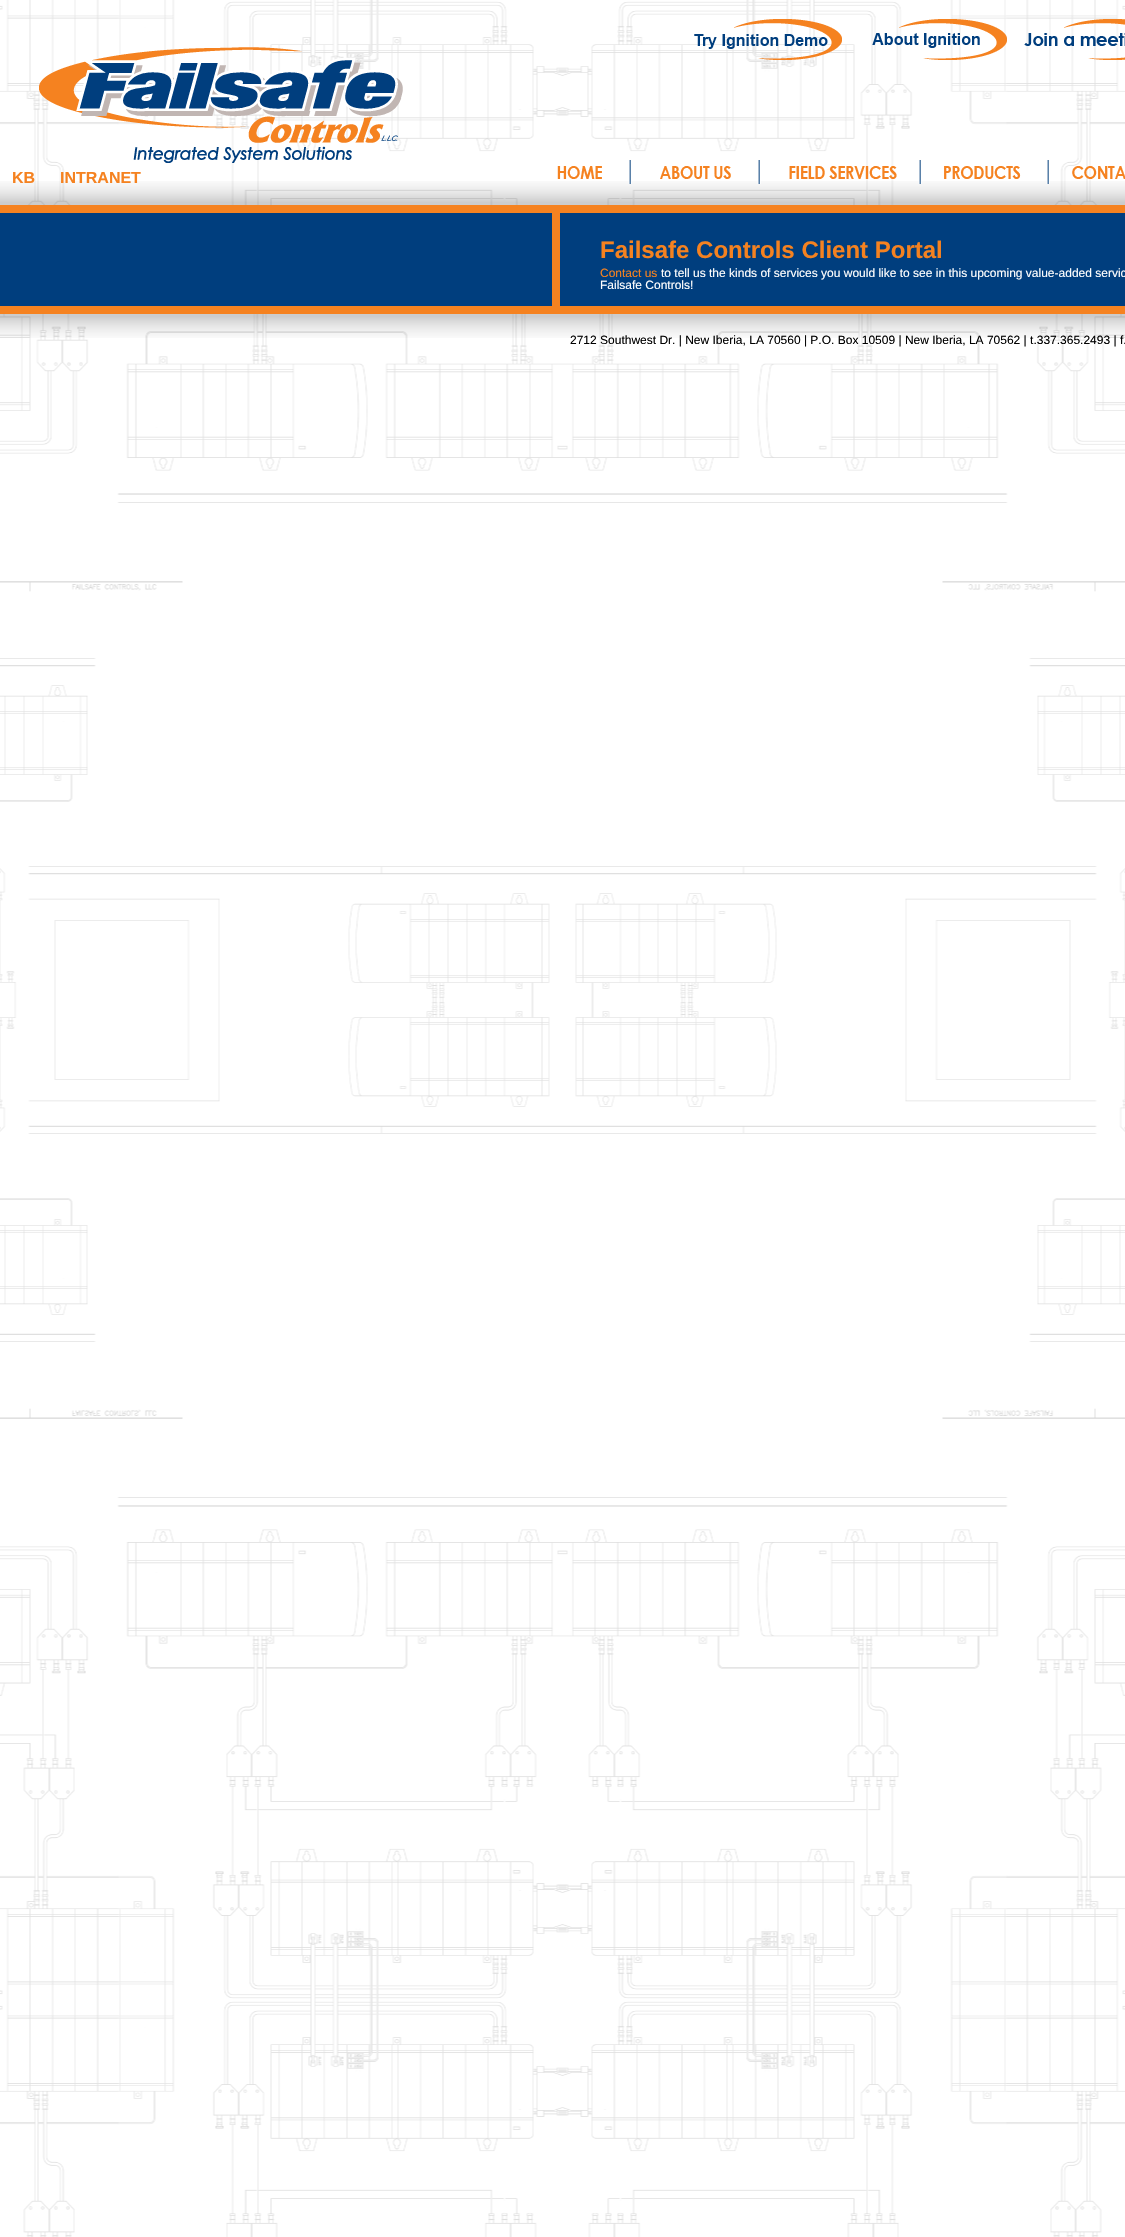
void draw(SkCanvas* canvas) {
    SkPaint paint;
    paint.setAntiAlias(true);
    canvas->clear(0xFFFFFFFF);
    canvas->drawImageRect(SkImages::DeferredFromEncodedData(SkData::MakeFromFileName("img1.png")), SkRect::MakeXYWH(0, 0, 1125, 2237), SkSamplingOptions());
    canvas->drawImageRect(SkImages::DeferredFromEncodedData(SkData::MakeFromFileName("img2.png")), SkRect::MakeXYWH(0, 181, 1125, 24), SkSamplingOptions());
    canvas->drawImageRect(SkImages::DeferredFromEncodedData(SkData::MakeFromFileName("img3.png")), SkRect::MakeXYWH(694, 19, 148, 41), SkSamplingOptions());
    canvas->drawImageRect(SkImages::DeferredFromEncodedData(SkData::MakeFromFileName("img4.png")), SkRect::MakeXYWH(872, 19, 135, 41), SkSamplingOptions());
    canvas->drawImageRect(SkImages::DeferredFromEncodedData(SkData::MakeFromFileName("img5.png")), SkRect::MakeXYWH(1024, 19, 101, 41), SkSamplingOptions());
    canvas->drawImageRect(SkImages::DeferredFromEncodedData(SkData::MakeFromFileName("img6.png")), SkRect::MakeXYWH(39, 47, 364, 116), SkSamplingOptions());
    SkFont font1(fontMgr->matchFamilyStyle("Liberation Sans", SkFontStyle::Bold()), 16);
    font1.setSubpixel(true);
    paint.setColor(0xFFF58220);
    canvas->drawString("KB", 12, 183, font1, paint);
    canvas->drawString("INTRANET", 60, 183, font1, paint);
    canvas->drawImageRect(SkImages::DeferredFromEncodedData(SkData::MakeFromFileName("img7.png")), SkRect::MakeXYWH(557, 160, 568, 24), SkSamplingOptions());
    paint.setColor(0xFF003E7E);
    canvas->drawRect(SkRect::MakeXYWH(0, 213, 1125, 93), paint);
    paint.setColor(0xFFF58220);
    canvas->drawRect(SkRect::MakeXYWH(0, 205, 1125, 8), paint);
    canvas->drawRect(SkRect::MakeXYWH(0, 306, 1125, 8), paint);
    canvas->drawRect(SkRect::MakeXYWH(552, 209, 8, 101), paint);
    SkFont font2(fontMgr->matchFamilyStyle("Liberation Sans", SkFontStyle::Bold()), 24);
    font2.setSubpixel(true);
    canvas->drawString("Failsafe Controls Client Portal", 600, 258, font2, paint);
    SkFont font3(fontMgr->matchFamilyStyle("Liberation Sans", SkFontStyle::Normal()), 12);
    font3.setSubpixel(true);
    canvas->drawString("Contact us", 600, 277, font3, paint);
    paint.setColor(0xFFFFFFFF);
    canvas->drawString("to tell us the kinds of services you would like to see in this upcoming value-added servic", 661, 277, font3, paint);
    canvas->drawString("Failsafe Controls!", 600, 289, font3, paint);
    canvas->drawImageRect(SkImages::DeferredFromEncodedData(SkData::MakeFromFileName("img8.png")), SkRect::MakeXYWH(0, 314, 1125, 24), SkSamplingOptions());
    paint.setColor(0xFF000000);
    canvas->drawString("2712 Southwest Dr. | New Iberia, LA 70560 | P.O. Box 10509 | New Iberia, LA 70562 | t.337.365.2493 | f.", 570, 344, font3, paint);
}
